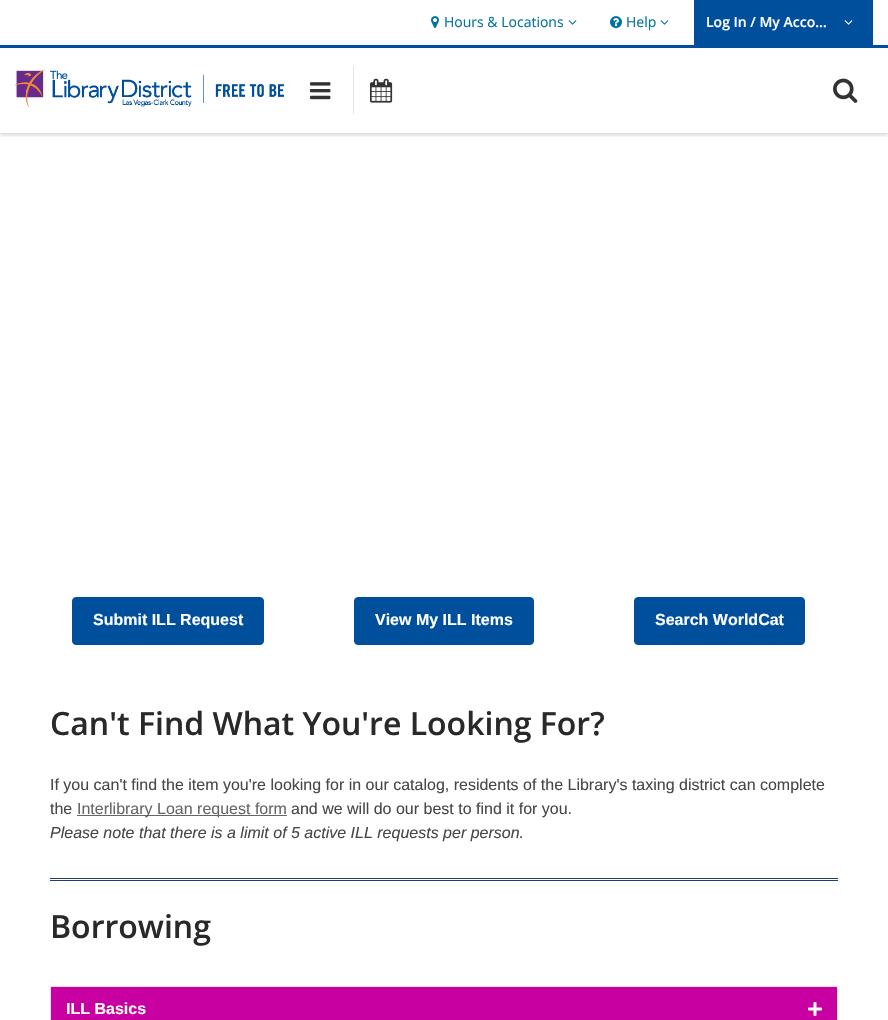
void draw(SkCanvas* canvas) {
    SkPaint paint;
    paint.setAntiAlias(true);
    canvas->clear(0xFFFFFFFF);
    canvas->save();
    canvas->clipRect(SkRect::MakeXYWH(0, 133, 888, 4));
    paint.setColor(0x29000000);
    paint.setMaskFilter(SkMaskFilter::MakeBlur(kNormal_SkBlurStyle, 2));
    canvas->drawRect(SkRect::MakeXYWH(0, 2, 888, 133), paint);
    paint.setMaskFilter(nullptr);
    canvas->restore();
    paint.setColor(0xFF004F9D);
    canvas->drawRect(SkRect::MakeXYWH(0, 45, 888, 3), paint);
    canvas->drawImageRect(SkImages::DeferredFromEncodedData(SkData::MakeFromFileName("img1.png")), SkRect::MakeXYWH(431, 16, 8, 12), SkSamplingOptions());
    SkFont font1(fontMgr->matchFamilyStyle("Open Sans", SkFontStyle::Normal()), 14);
    font1.setSubpixel(true);
    paint.setColor(0xFF02729E);
    canvas->drawString("Hours & Locations", 444, 27, font1, paint);
    canvas->drawImageRect(SkImages::DeferredFromEncodedData(SkData::MakeFromFileName("img2.png")), SkRect::MakeXYWH(568, 20, 9, 5), SkSamplingOptions());
    canvas->drawImageRect(SkImages::DeferredFromEncodedData(SkData::MakeFromFileName("img3.png")), SkRect::MakeXYWH(610, 16, 12, 13), SkSamplingOptions());
    canvas->drawString("Help", 626, 27, font1, paint);
    canvas->drawImageRect(SkImages::DeferredFromEncodedData(SkData::MakeFromFileName("img2.png")), SkRect::MakeXYWH(660, 20, 9, 5), SkSamplingOptions());
    paint.setColor(0xFF004F9D);
    canvas->drawRect(SkRect::MakeXYWH(694, 0, 179, 45), paint);
    SkFont font2(fontMgr->matchFamilyStyle("Open Sans", SkFontStyle(600, SkFontStyle::kNormal_Width, SkFontStyle::kUpright_Slant)), 14);
    font2.setSubpixel(true);
    paint.setColor(0xFFFFFFFF);
    canvas->drawString("Log In / My Acco…", 706, 27, font2, paint);
    canvas->drawImageRect(SkImages::DeferredFromEncodedData(SkData::MakeFromFileName("img4.png")), SkRect::MakeXYWH(844, 20, 9, 5), SkSamplingOptions());
    canvas->drawImageRect(SkImages::DeferredFromEncodedData(SkData::MakeFromFileName("img5.png")), SkRect::MakeXYWH(15, 69, 269, 38), SkSamplingOptions());
    canvas->drawImageRect(SkImages::DeferredFromEncodedData(SkData::MakeFromFileName("img6.png")), SkRect::MakeXYWH(310, 82, 21, 18), SkSamplingOptions());
    paint.setColor(0xFFE4E4E4);
    canvas->drawRect(SkRect::MakeXYWH(353, 66, 1, 48), paint);
    canvas->drawImageRect(SkImages::DeferredFromEncodedData(SkData::MakeFromFileName("img7.png")), SkRect::MakeXYWH(370, 78, 23, 25), SkSamplingOptions());
    canvas->drawImageRect(SkImages::DeferredFromEncodedData(SkData::MakeFromFileName("img8.png")), SkRect::MakeXYWH(833, 78, 25, 25), SkSamplingOptions());
    paint.setColor(0xFF004F9D);
    canvas->drawRoundRect(SkRect::MakeXYWH(72.5f, 597.5f, 191, 47), 3.5f, 3.5f, paint);
    paint.setStyle(SkPaint::kStroke_Style);
    paint.setStrokeWidth(1);
    canvas->drawRoundRect(SkRect::MakeXYWH(72.5f, 597.5f, 191, 47), 3.5f, 3.5f, paint);
    SkFont font3(fontMgr->matchFamilyStyle("Liberation Sans", SkFontStyle::Bold()), 16);
    font3.setSubpixel(true);
    paint.setStyle(SkPaint::kFill_Style);
    paint.setColor(0xFFFFFFFF);
    canvas->drawString("Submit ILL Request", 93, 625, font3, paint);
    paint.setColor(0xFF004F9D);
    canvas->drawRoundRect(SkRect::MakeXYWH(354.5f, 597.5f, 179, 47), 3.5f, 3.5f, paint);
    paint.setStyle(SkPaint::kStroke_Style);
    canvas->drawRoundRect(SkRect::MakeXYWH(354.5f, 597.5f, 179, 47), 3.5f, 3.5f, paint);
    paint.setStyle(SkPaint::kFill_Style);
    paint.setColor(0xFFFFFFFF);
    canvas->drawString("View My ILL Items", 375, 625, font3, paint);
    paint.setColor(0xFF004F9D);
    canvas->drawRoundRect(SkRect::MakeXYWH(634.5f, 597.5f, 170, 47), 3.5f, 3.5f, paint);
    paint.setStyle(SkPaint::kStroke_Style);
    canvas->drawRoundRect(SkRect::MakeXYWH(634.5f, 597.5f, 170, 47), 3.5f, 3.5f, paint);
    paint.setStyle(SkPaint::kFill_Style);
    paint.setColor(0xFFFFFFFF);
    canvas->drawString("Search WorldCat", 655, 625, font3, paint);
    SkFont font4(fontMgr->matchFamilyStyle("Open Sans", SkFontStyle(600, SkFontStyle::kNormal_Width, SkFontStyle::kUpright_Slant)), 32);
    font4.setSubpixel(true);
    paint.setColor(0xFF292929);
    canvas->drawString("Can't Find What You're Looking For?", 50, 735, font4, paint);
    SkFont font5(fontMgr->matchFamilyStyle("Liberation Sans", SkFontStyle::Normal()), 16);
    font5.setSubpixel(true);
    paint.setColor(0xFF474747);
    canvas->drawString("If you can't find the item you're looking for in our catalog, residents of the Library's taxing district can complete", 50, 790, font5, paint);
    canvas->drawString("the", 50, 814, font5, paint);
    paint.setColor(0xFF666666);
    canvas->drawRect(SkRect::MakeXYWH(77, 815, 210, 1), paint);
    canvas->drawString("Interlibrary Loan request form", 77, 814, font5, paint);
    paint.setColor(0xFF474747);
    canvas->drawString("and we will do our best to find it for you.", 291, 814, font5, paint);
    SkFont font6(fontMgr->matchFamilyStyle("Liberation Sans", SkFontStyle::Italic()), 16);
    font6.setSubpixel(true);
    canvas->drawString("Please note that there is a limit of 5 active ILL requests per person.", 50, 838, font6, paint);
    paint.setColor(0xFF1F3E74);
    canvas->drawRect(SkRect::MakeXYWH(50, 878, 788, 1), paint);
    canvas->drawRect(SkRect::MakeXYWH(50, 880, 788, 1), paint);
    paint.setColor(0xFF292929);
    canvas->drawString("Borrowing", 50, 938, font4, paint);
    paint.setStyle(SkPaint::kStroke_Style);
    paint.setColor(0xFFE5E5E5);
    canvas->drawRect(SkRect::MakeXYWH(50.5f, 986.5f, 787, 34), paint);
    paint.setStyle(SkPaint::kFill_Style);
    paint.setColor(0xFFC800A1);
    canvas->drawRect(SkRect::MakeXYWH(51, 987, 786, 33), paint);
    paint.setColor(0xFFFFFFFF);
    canvas->drawString("ILL Basics", 66, 1014, font3, paint);
    canvas->drawImageRect(SkImages::DeferredFromEncodedData(SkData::MakeFromFileName("img9.png")), SkRect::MakeXYWH(808, 1002, 14, 14), SkSamplingOptions());
}
